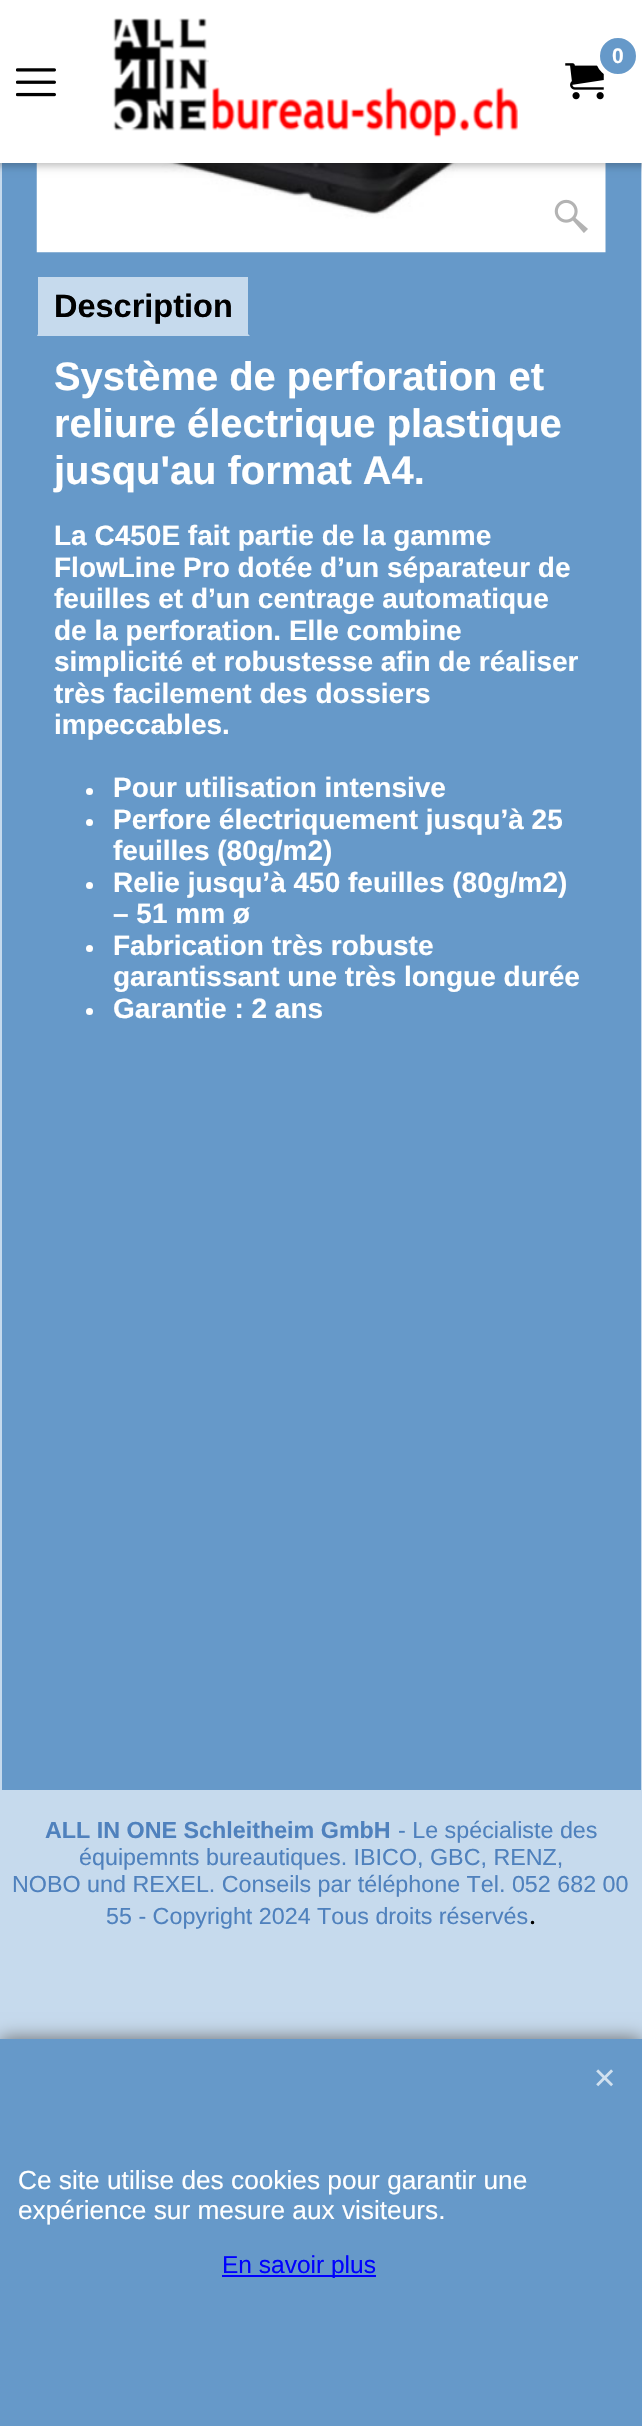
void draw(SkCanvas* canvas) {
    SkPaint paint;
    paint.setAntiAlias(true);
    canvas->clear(0xFFC6DAED);
    paint.setColor(0xFF6699C9);
    canvas->drawRect(SkRect::MakeXYWH(2, 163, 639, 1627), paint);
    canvas->drawImageRect(SkImages::DeferredFromEncodedData(SkData::MakeFromFileName("img4.png")), SkRect::MakeXYWH(36, 163, 570, 90), SkSamplingOptions());
    paint.setColor(0x4D000000);
    paint.setMaskFilter(SkMaskFilter::MakeBlur(kNormal_SkBlurStyle, 4.5f));
    canvas->drawRect(SkRect::MakeXYWH(-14, -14, 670, 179), paint);
    paint.setMaskFilter(nullptr);
    paint.setColor(0xFFFFFFFF);
    canvas->drawRect(SkRect::MakeXYWH(0, 0, 642, 163), paint);
    canvas->drawImageRect(SkImages::DeferredFromEncodedData(SkData::MakeFromFileName("img1.png")), SkRect::MakeXYWH(113, 18, 405, 120), SkSamplingOptions());
    canvas->drawImageRect(SkImages::DeferredFromEncodedData(SkData::MakeFromFileName("img2.png")), SkRect::MakeXYWH(565, 63, 39, 37), SkSamplingOptions());
    paint.setColor(0xFF6699C9);
    canvas->drawCircle(618, 56, 20.5f, paint);
    paint.setStyle(SkPaint::kStroke_Style);
    paint.setStrokeWidth(5);
    paint.setColor(0xFFFFFFFF);
    canvas->drawCircle(618, 56, 20.5f, paint);
    SkFont font1(fontMgr->matchFamilyStyle("Liberation Sans", SkFontStyle::Bold()), 21);
    font1.setSubpixel(true);
    paint.setStyle(SkPaint::kFill_Style);
    canvas->drawString("0", 612, 63, font1, paint);
    canvas->drawImageRect(SkImages::DeferredFromEncodedData(SkData::MakeFromFileName("img3.png")), SkRect::MakeXYWH(16, 68, 40, 29), SkSamplingOptions());
    canvas->drawImageRect(SkImages::DeferredFromEncodedData(SkData::MakeFromFileName("img5.png")), SkRect::MakeXYWH(554, 199, 34, 34), SkSamplingOptions());
    paint.setColor(0xFFC6DAED);
    canvas->drawRect(SkRect::MakeXYWH(37, 277, 213, 59), paint);
    paint.setColor(0xFF6699C9);
    canvas->drawPath(SkPathBuilder().moveTo(250, 275).lineTo(250, 336).lineTo(248, 334).lineTo(248, 276).close().detach(), paint);
    canvas->drawPath(SkPathBuilder().moveTo(37, 336).lineTo(37, 275).lineTo(38, 276).lineTo(38, 334).close().detach(), paint);
    SkFont font2(fontMgr->matchFamilyStyle("Liberation Sans", SkFontStyle::Bold()), 32.5f);
    font2.setSubpixel(true);
    paint.setColor(0xFF000000);
    canvas->drawString("Description", 54, 317, font2, paint);
    SkFont font3(fontMgr->matchFamilyStyle("Liberation Sans", SkFontStyle::Bold()), 39.9f);
    font3.setSubpixel(true);
    paint.setColor(0xFFFFFFFF);
    canvas->drawString("Système de perforation et", 54, 390, font3, paint);
    canvas->drawString("reliure électrique plastique", 54, 437, font3, paint);
    canvas->drawString("jusqu'au format A4.", 54, 484, font3, paint);
    SkFont font4(fontMgr->matchFamilyStyle("Liberation Sans", SkFontStyle::Bold()), 28);
    font4.setSubpixel(true);
    canvas->drawString("La C450E fait partie de la gamme", 54, 545, font4, paint);
    canvas->drawString("FlowLine Pro dotée d’un séparateur de", 54, 577, font4, paint);
    canvas->drawString("feuilles et d’un centrage automatique", 54, 608, font4, paint);
    canvas->drawString("de la perforation. Elle combine", 54, 640, font4, paint);
    canvas->drawString("simplicité et robustesse afin de réaliser", 54, 671, font4, paint);
    canvas->drawString("très facilement des dossiers", 54, 703, font4, paint);
    canvas->drawString("impeccables.", 54, 734, font4, paint);
    canvas->drawCircle(89.5f, 791.5f, 3.5f, paint);
    canvas->drawString("Pour utilisation intensive", 113, 797, font4, paint);
    canvas->drawCircle(89.5f, 822.5f, 3.5f, paint);
    canvas->drawString("Perfore électriquement jusqu’à 25", 113, 829, font4, paint);
    canvas->drawString("feuilles (80g/m2)", 113, 860, font4, paint);
    canvas->drawCircle(89.5f, 885.5f, 3.5f, paint);
    canvas->drawString("Relie jusqu’à 450 feuilles (80g/m2)", 113, 892, font4, paint);
    canvas->drawString("– 51 mm ø", 113, 923, font4, paint);
    canvas->drawCircle(89.5f, 948.5f, 3.5f, paint);
    canvas->drawString("Fabrication très robuste", 113, 955, font4, paint);
    canvas->drawString("garantissant une très longue durée", 113, 986, font4, paint);
    canvas->drawCircle(89.5f, 1011.5f, 3.5f, paint);
    canvas->drawString("Garantie : 2 ans", 113, 1018, font4, paint);
    SkFont font5(fontMgr->matchFamilyStyle("Liberation Sans", SkFontStyle::Bold()), 23.3f);
    font5.setSubpixel(true);
    paint.setColor(0xFF4F81BD);
    canvas->drawString("ALL IN ONE Schleitheim GmbH", 45, 1838, font5, paint);
    SkFont font6(fontMgr->matchFamilyStyle("Liberation Sans", SkFontStyle::Normal()), 23.3f);
    font6.setSubpixel(true);
    canvas->drawString("- Le spécialiste des", 398, 1838, font6, paint);
    canvas->drawString("équipemnts bureautiques. IBICO, GBC, RENZ,", 79, 1865, font6, paint);
    canvas->drawString("NOBO und REXEL. Conseils par téléphone Tel. 052 682 00", 12, 1892, font6, paint);
    canvas->drawString("55 - Copyright 2024 Tous droits réservés", 106, 1924, font6, paint);
    SkFont font7(fontMgr->matchFamilyStyle("Carlito", SkFontStyle::Normal()), 28);
    font7.setSubpixel(true);
    paint.setColor(0xFF000000);
    canvas->drawString(".", 529, 1924, font7, paint);
    paint.setColor(0xFF666666);
    paint.setMaskFilter(SkMaskFilter::MakeBlur(kNormal_SkBlurStyle, 9));
    canvas->drawRect(SkRect::MakeXYWH(0, 2039, 642, 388), paint);
    paint.setMaskFilter(nullptr);
    paint.setColor(0xFF6699C9);
    canvas->drawRect(SkRect::MakeXYWH(0, 2039, 642, 387), paint);
    canvas->drawImageRect(SkImages::DeferredFromEncodedData(SkData::MakeFromFileName("img6.png")), SkRect::MakeXYWH(596, 2069, 17, 18), SkSamplingOptions());
    SkFont font8(fontMgr->matchFamilyStyle("Liberation Sans", SkFontStyle::Normal()), 26.25f);
    font8.setSubpixel(true);
    paint.setColor(0xFFFFFFFF);
    canvas->drawString("Ce site utilise des cookies pour garantir une", 18, 2189, font8, paint);
    canvas->drawString("expérience sur mesure aux visiteurs.", 18, 2219, font8, paint);
    paint.setColor(0xFF0000FF);
    canvas->drawRect(SkRect::MakeXYWH(222, 2275, 154, 2), paint);
    SkFont font9(fontMgr->matchFamilyStyle("Liberation Sans", SkFontStyle::Normal()), 24.5f);
    font9.setSubpixel(true);
    canvas->drawString("En savoir plus", 222, 2273, font9, paint);
}
